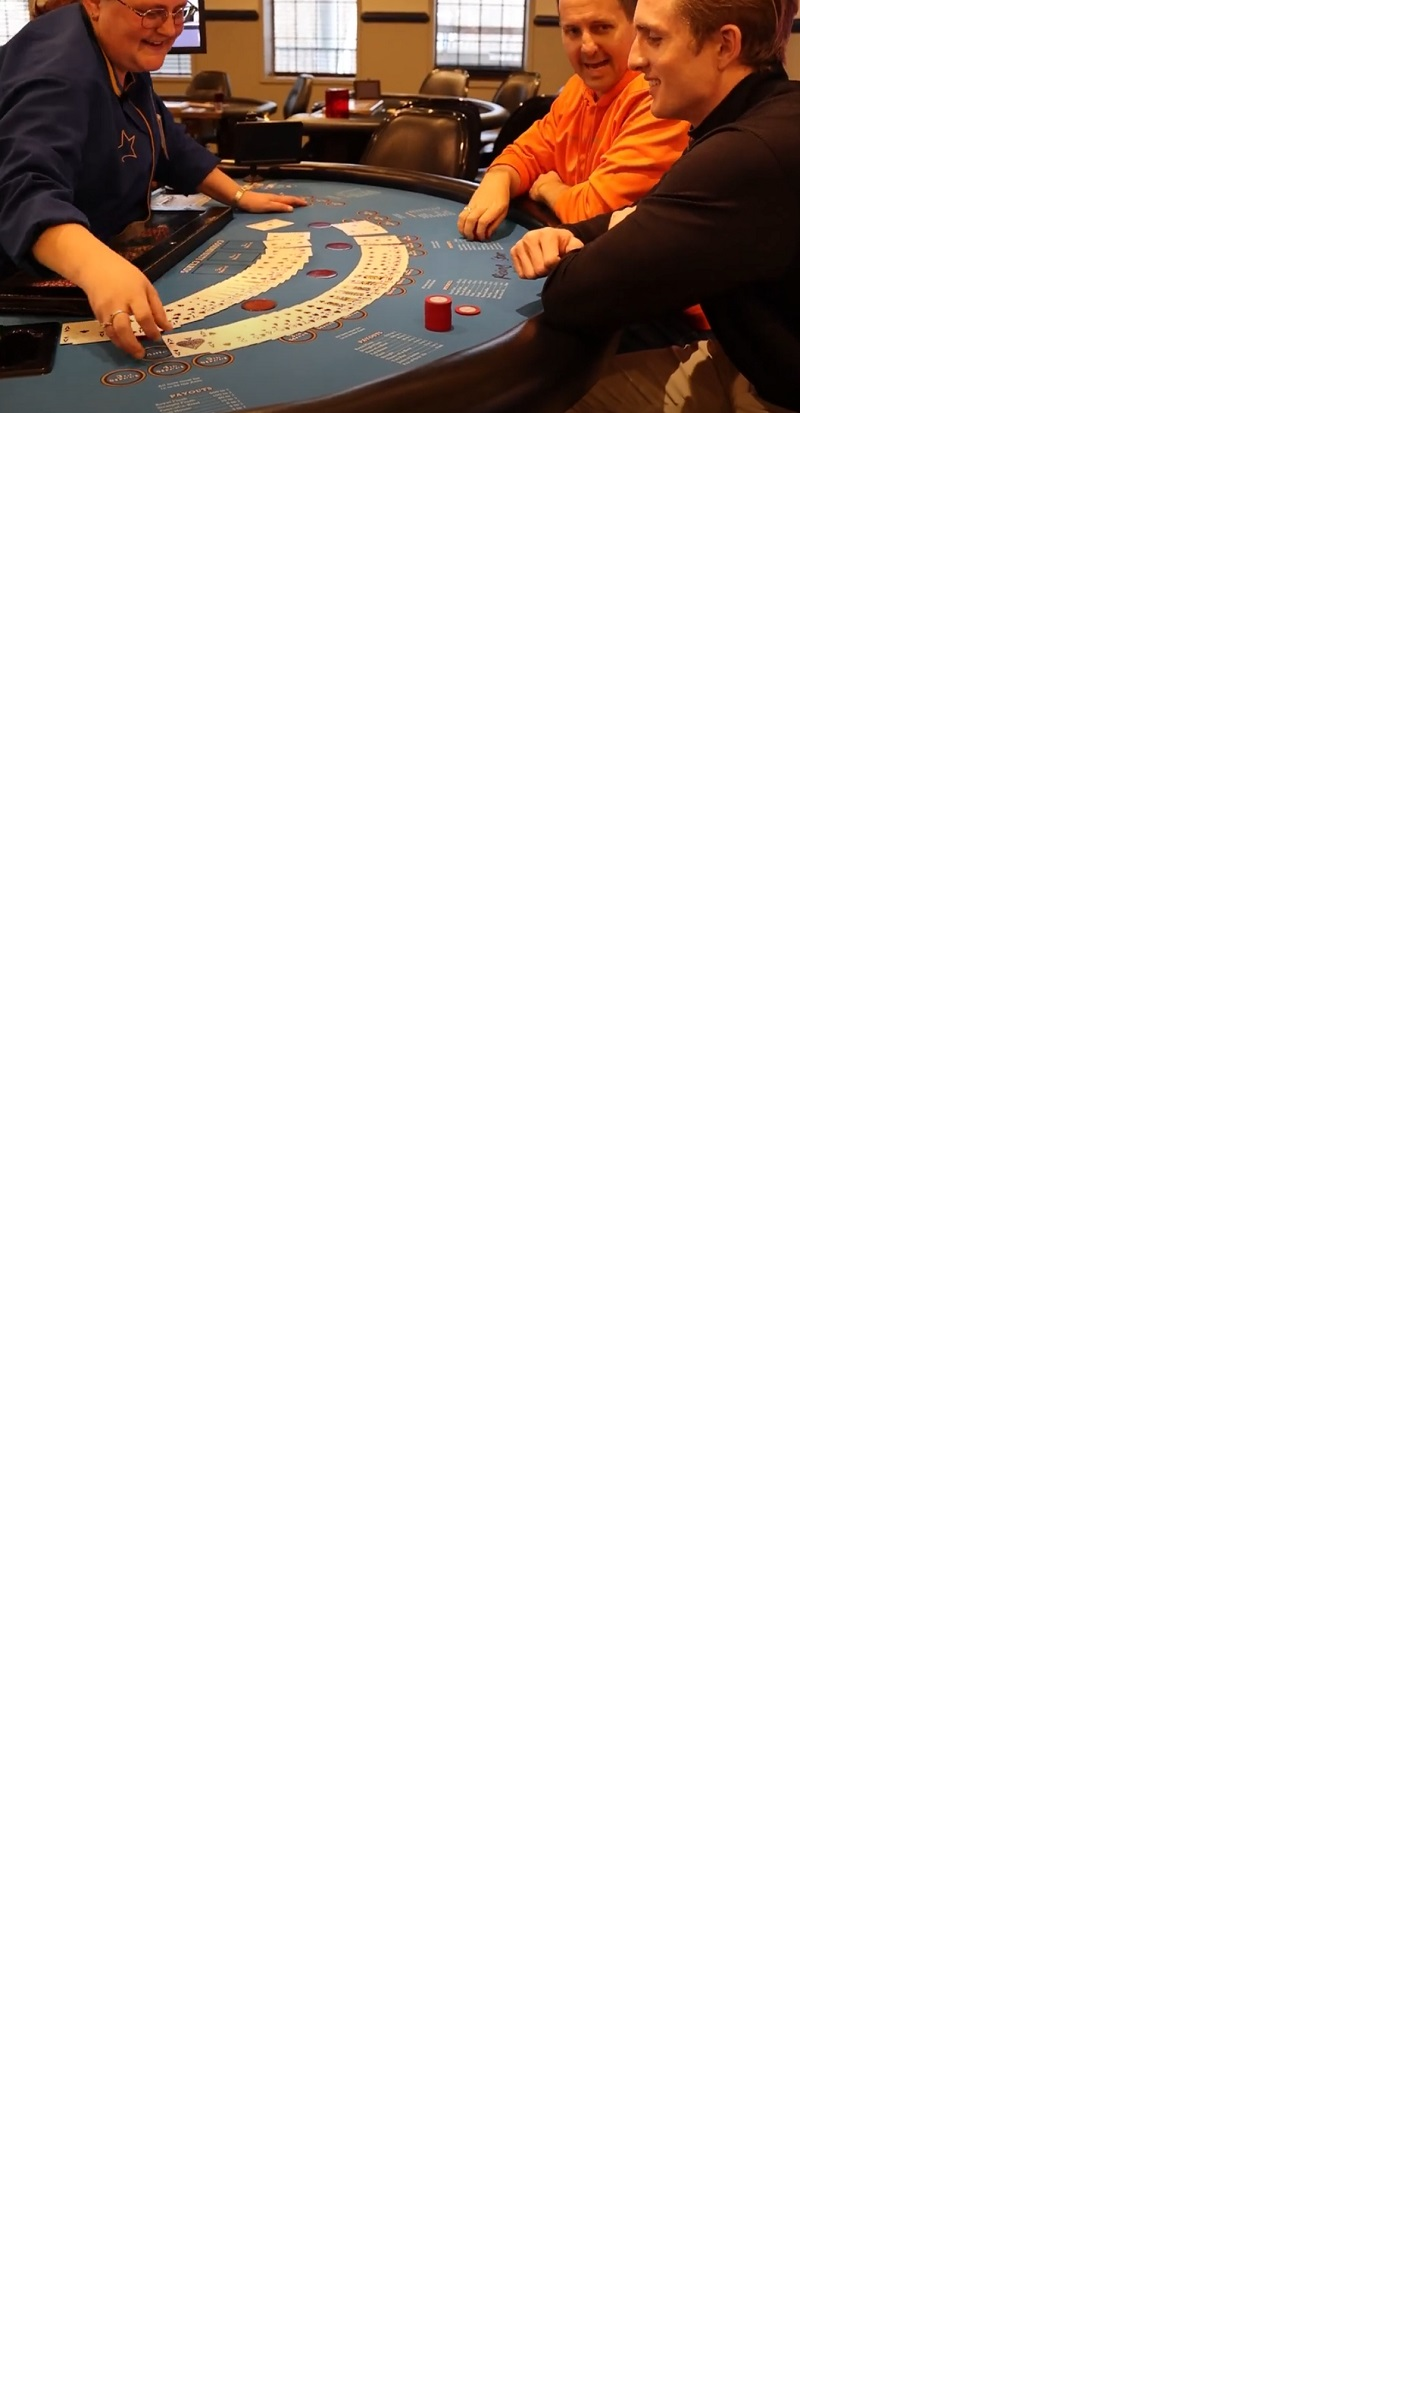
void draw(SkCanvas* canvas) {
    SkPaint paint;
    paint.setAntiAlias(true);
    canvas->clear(0xFFFFFFFF);
    canvas->drawImageRect(SkImages::DeferredFromEncodedData(SkData::MakeFromFileName("img1.png")), SkRect::MakeXYWH(0, 0, 800, 413), SkSamplingOptions());
}
